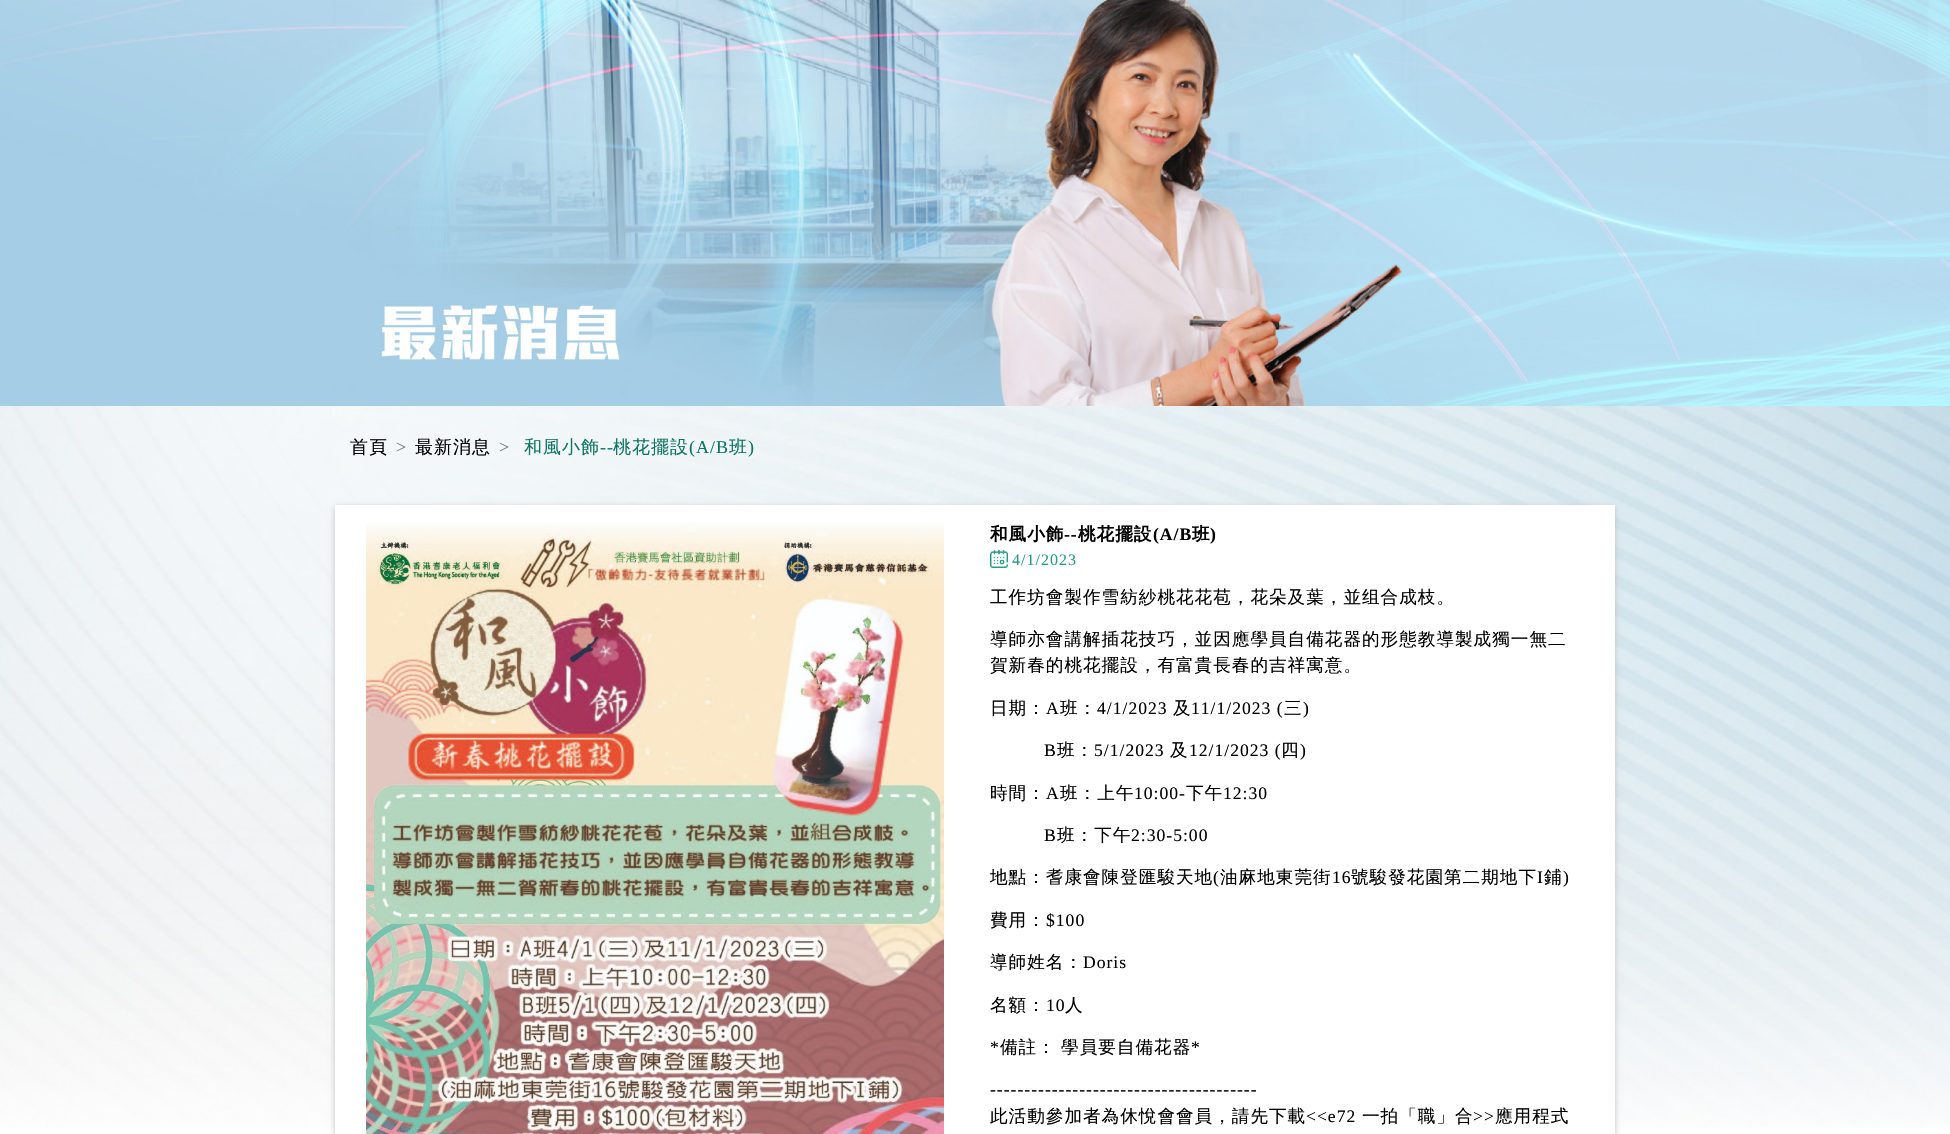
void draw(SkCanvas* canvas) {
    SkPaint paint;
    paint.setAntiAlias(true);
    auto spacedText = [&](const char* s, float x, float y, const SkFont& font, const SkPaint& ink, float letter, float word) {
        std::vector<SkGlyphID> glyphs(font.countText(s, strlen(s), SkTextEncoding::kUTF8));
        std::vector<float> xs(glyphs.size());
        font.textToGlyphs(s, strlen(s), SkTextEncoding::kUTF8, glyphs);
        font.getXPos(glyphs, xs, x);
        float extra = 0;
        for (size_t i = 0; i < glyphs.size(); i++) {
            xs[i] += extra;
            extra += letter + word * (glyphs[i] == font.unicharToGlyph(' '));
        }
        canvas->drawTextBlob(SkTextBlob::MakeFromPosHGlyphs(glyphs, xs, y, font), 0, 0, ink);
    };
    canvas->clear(0xFFFFFFFF);
    canvas->drawImageRect(SkImages::DeferredFromEncodedData(SkData::MakeFromFileName("img1.png")), SkRect::MakeXYWH(0, 0, 1950, 406), SkSamplingOptions());
    canvas->drawImageRect(SkImages::DeferredFromEncodedData(SkData::MakeFromFileName("img2.png")), SkRect::MakeXYWH(0, 406, 1950, 722), SkSamplingOptions());
    SkFont font1(fontMgr->matchFamilyStyle("WenQuanYi Zen Hei", SkFontStyle(500, SkFontStyle::kNormal_Width, SkFontStyle::kUpright_Slant)), 18);
    font1.setSubpixel(true);
    paint.setColor(0xFF000000);
    spacedText("首頁", 350, 453, font1, paint, 1, 0);
    SkFont font2(fontMgr->matchFamilyStyle("Liberation Serif", SkFontStyle::Normal()), 18);
    font2.setSubpixel(true);
    paint.setColor(0xFF6C757D);
    spacedText(">", 396, 453, font2, paint, 1, 0);
    paint.setColor(0xFF000000);
    spacedText("最新消息", 415, 453, font1, paint, 1, 0);
    paint.setColor(0xFF6C757D);
    spacedText(">", 499, 453, font2, paint, 1, 0);
    paint.setColor(0xFF0D7562);
    spacedText("和風小飾", 524, 453, font1, paint, 1, 0);
    spacedText("--", 600, 453, font2, paint, 1, 0);
    spacedText("桃花擺設", 613, 453, font1, paint, 1, 0);
    spacedText("(A/B", 689, 453, font2, paint, 1, 0);
    spacedText("班", 729, 453, font1, paint, 1, 0);
    spacedText(")", 748, 453, font2, paint, 1, 0);
    paint.setColor(0xFFC2C2C2);
    paint.setMaskFilter(SkMaskFilter::MakeBlur(kNormal_SkBlurStyle, 3));
    canvas->drawRect(SkRect::MakeXYWH(335, 507, 1280, 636), paint);
    paint.setMaskFilter(nullptr);
    paint.setColor(0xFFFFFFFF);
    canvas->drawRect(SkRect::MakeXYWH(335, 505, 1280, 629), paint);
    canvas->drawImageRect(SkImages::DeferredFromEncodedData(SkData::MakeFromFileName("img3.png")), SkRect::MakeXYWH(366, 522, 578, 612), SkSamplingOptions());
    SkFont font3(fontMgr->matchFamilyStyle("WenQuanYi Zen Hei", SkFontStyle::Bold()), 17.6f);
    font3.setSubpixel(true);
    paint.setColor(0xFF000000);
    spacedText("和風小飾", 990, 540, font3, paint, 1, 0);
    SkFont font4(fontMgr->matchFamilyStyle("Liberation Serif", SkFontStyle::Bold()), 17.6f);
    font4.setSubpixel(true);
    spacedText("--", 1064, 540, font4, paint, 1, 0);
    spacedText("桃花擺設", 1078, 540, font3, paint, 1, 0);
    spacedText("(A/B", 1153, 540, font4, paint, 1, 0);
    spacedText("班", 1192, 540, font3, paint, 1, 0);
    spacedText(")", 1210, 540, font4, paint, 1, 0);
    canvas->drawImageRect(SkImages::DeferredFromEncodedData(SkData::MakeFromFileName("img4.png")), SkRect::MakeXYWH(990, 550, 18, 18), SkSamplingOptions());
    SkFont font5(fontMgr->matchFamilyStyle("Liberation Serif", SkFontStyle::Normal()), 16);
    font5.setSubpixel(true);
    paint.setColor(0xFF1E9C85);
    spacedText("4/1/2023", 1012, 565, font5, paint, 1, 0);
    SkFont font6(fontMgr->matchFamilyStyle("WenQuanYi Zen Hei", SkFontStyle(500, SkFontStyle::kNormal_Width, SkFontStyle::kUpright_Slant)), 17.6f);
    font6.setSubpixel(true);
    paint.setColor(0xFF000000);
    spacedText("工作坊會製作雪紡紗桃花花苞，花朵及葉，並组合成枝。", 990, 603, font6, paint, 1, 0);
    spacedText("導師亦會講解插花技巧，並因應學員自備花器的形態教導製成獨一無二", 990, 645, font6, paint, 1, 0);
    spacedText("賀新春的桃花擺設，有富貴長春的吉祥寓意。", 990, 671, font6, paint, 1, 0);
    spacedText("日期：", 990, 714, font6, paint, 1, 0);
    SkFont font7(fontMgr->matchFamilyStyle("Liberation Serif", SkFontStyle::Normal()), 17.6f);
    font7.setSubpixel(true);
    spacedText("A", 1046, 714, font7, paint, 1, 0);
    spacedText("班：", 1060, 714, font6, paint, 1, 0);
    spacedText("4/1/2023", 1097, 714, font7, paint, 1, 0);
    spacedText("及", 1173, 714, font6, paint, 1, 0);
    spacedText("11/1/2023 (", 1191, 714, font7, paint, 1, 0);
    spacedText("三", 1284, 714, font6, paint, 1, 0);
    spacedText(")", 1303, 714, font7, paint, 1, 0);
    spacedText("B", 1044, 756, font7, paint, 1, 0);
    spacedText("班：", 1057, 756, font6, paint, 1, 0);
    spacedText("5/1/2023", 1094, 756, font7, paint, 1, 0);
    spacedText("及", 1170, 756, font6, paint, 1, 0);
    spacedText("12/1/2023 (", 1189, 756, font7, paint, 1, 0);
    spacedText("四", 1281, 756, font6, paint, 1, 0);
    spacedText(")", 1300, 756, font7, paint, 1, 0);
    spacedText("時間：", 990, 799, font6, paint, 1, 0);
    spacedText("A", 1046, 799, font7, paint, 1, 0);
    spacedText("班：上午", 1060, 799, font6, paint, 1, 0);
    spacedText("10:00-", 1134, 799, font7, paint, 1, 0);
    spacedText("下午", 1186, 799, font6, paint, 1, 0);
    spacedText("12:30", 1223, 799, font7, paint, 1, 0);
    spacedText("B", 1044, 841, font7, paint, 1, 0);
    spacedText("班：下午", 1057, 841, font6, paint, 1, 0);
    spacedText("2:30-5:00", 1131, 841, font7, paint, 1, 0);
    spacedText("地點：耆康會陳登匯駿天地", 990, 883, font6, paint, 1, 0);
    spacedText("(", 1213, 883, font7, paint, 1, 0);
    spacedText("油麻地東莞街", 1220, 883, font6, paint, 1, 0);
    spacedText("16", 1332, 883, font7, paint, 1, 0);
    spacedText("號駿發花園第二期地下", 1351, 883, font6, paint, 1, 0);
    spacedText("I", 1537, 883, font7, paint, 1, 0);
    spacedText("鋪", 1544, 883, font6, paint, 1, 0);
    spacedText(")", 1563, 883, font7, paint, 1, 0);
    spacedText("費用：", 990, 926, font6, paint, 1, 0);
    spacedText("$100", 1046, 926, font7, paint, 1, 0);
    spacedText("導師姓名：", 990, 968, font6, paint, 1, 0);
    spacedText("Doris", 1083, 968, font7, paint, 1, 0);
    spacedText("名額：", 990, 1011, font6, paint, 1, 0);
    spacedText("10", 1046, 1011, font7, paint, 1, 0);
    spacedText("人", 1065, 1011, font6, paint, 1, 0);
    spacedText("*", 990, 1053, font7, paint, 1, 0);
    spacedText("備註： 學員要自備花器", 1000, 1053, font6, paint, 1, -1);
    spacedText("*", 1191, 1053, font7, paint, 1, 0);
    spacedText("---------------------------------------", 990, 1095, font7, paint, 1, 0);
    spacedText("此活動參加者為休悅會會員，請先下載", 990, 1122, font6, paint, 1, 0);
    spacedText("<<e72", 1306, 1122, font7, paint, 1, 0);
    spacedText("一拍「職」合", 1362, 1122, font6, paint, 1, 0);
    spacedText(">>", 1473, 1122, font7, paint, 1, 0);
    spacedText("應用程式", 1495, 1122, font6, paint, 1, 0);
}
